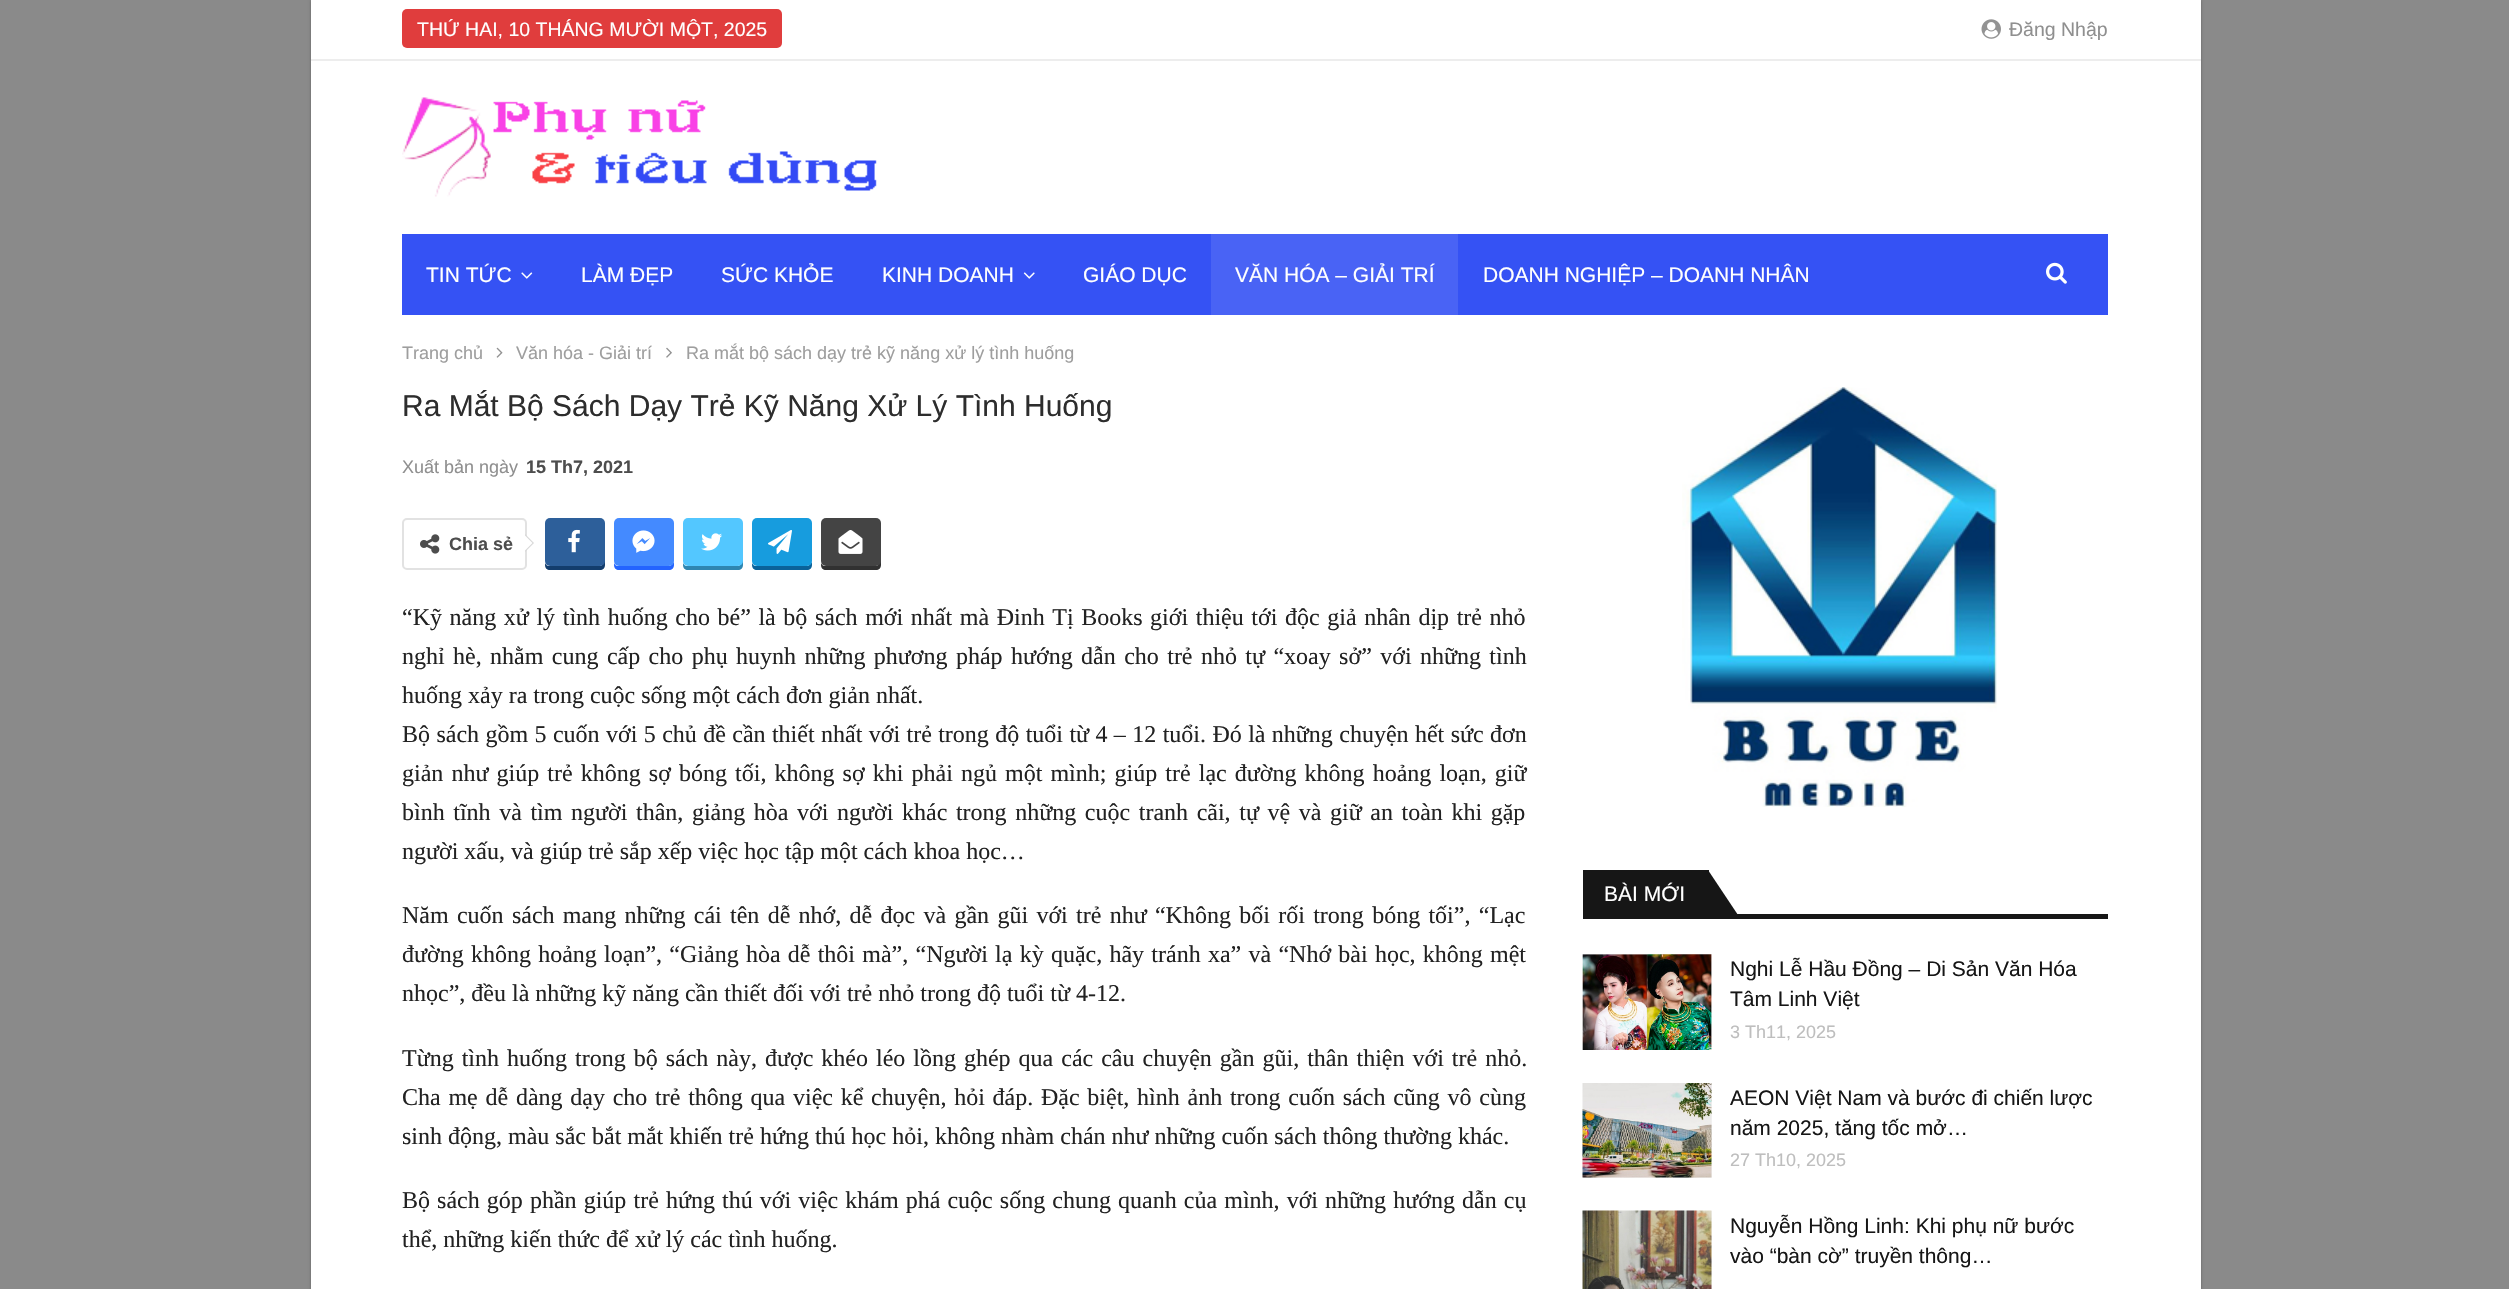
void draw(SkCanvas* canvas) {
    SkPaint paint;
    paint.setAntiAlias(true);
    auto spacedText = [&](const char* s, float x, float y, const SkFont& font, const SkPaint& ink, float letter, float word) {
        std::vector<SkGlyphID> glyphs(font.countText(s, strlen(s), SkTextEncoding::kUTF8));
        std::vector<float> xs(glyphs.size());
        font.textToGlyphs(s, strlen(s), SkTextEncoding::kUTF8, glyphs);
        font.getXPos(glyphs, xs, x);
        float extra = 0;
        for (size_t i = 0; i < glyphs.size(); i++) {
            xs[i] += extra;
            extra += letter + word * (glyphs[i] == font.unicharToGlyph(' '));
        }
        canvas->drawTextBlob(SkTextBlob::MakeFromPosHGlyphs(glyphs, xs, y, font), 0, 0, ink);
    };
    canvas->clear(0xFF8A8A8A);
    paint.setColor(0x45000000);
    paint.setMaskFilter(SkMaskFilter::MakeBlur(kNormal_SkBlurStyle, 1.5f));
    canvas->drawRect(SkRect::MakeXYWH(311, 0, 1890, 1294), paint);
    paint.setMaskFilter(nullptr);
    paint.setColor(0xFFFFFFFF);
    canvas->drawRect(SkRect::MakeXYWH(311, 0, 1890, 1289), paint);
    paint.setColor(0xFFEDEDED);
    canvas->drawRect(SkRect::MakeXYWH(311, 59, 1890, 2), paint);
    paint.setColor(0xFFE03D3D);
    canvas->drawRoundRect(SkRect::MakeXYWH(402, 9, 380, 39), 5, 5, paint);
    SkFont font1(fontMgr->matchFamilyStyle("Liberation Sans", SkFontStyle::Normal()), 19.5f);
    font1.setSubpixel(true);
    paint.setColor(0xFFFFFFFF);
    canvas->drawString("THỨ HAI, 10 THÁNG MƯỜI MỘT, 2025", 417, 36, font1, paint);
    canvas->drawImageRect(SkImages::DeferredFromEncodedData(SkData::MakeFromFileName("img1.png")), SkRect::MakeXYWH(1981, 19, 20, 20), SkSamplingOptions());
    paint.setColor(0xFF8F8F8F);
    canvas->drawString("Đăng Nhập", 2009, 36, font1, paint);
    canvas->drawImageRect(SkImages::DeferredFromEncodedData(SkData::MakeFromFileName("img2.png")), SkRect::MakeXYWH(402, 97, 475, 100), SkSamplingOptions());
    paint.setColor(0xFF3552F4);
    canvas->drawRect(SkRect::MakeXYWH(402, 234, 1706, 81), paint);
    SkFont font2(fontMgr->matchFamilyStyle("Liberation Sans", SkFontStyle::Normal()), 21);
    font2.setSubpixel(true);
    paint.setColor(0xFFFFFFFF);
    canvas->drawString("TIN TỨC", 426, 282, font2, paint);
    canvas->drawImageRect(SkImages::DeferredFromEncodedData(SkData::MakeFromFileName("img3.png")), SkRect::MakeXYWH(521, 272, 12, 7), SkSamplingOptions());
    canvas->drawString("LÀM ĐẸP", 581, 282, font2, paint);
    canvas->drawString("SỨC KHỎE", 721, 282, font2, paint);
    canvas->drawString("KINH DOANH", 882, 282, font2, paint);
    canvas->drawImageRect(SkImages::DeferredFromEncodedData(SkData::MakeFromFileName("img4.png")), SkRect::MakeXYWH(1023, 272, 12, 7), SkSamplingOptions());
    canvas->drawString("GIÁO DỤC", 1083, 282, font2, paint);
    paint.setColor(0xFF4963F5);
    canvas->drawRect(SkRect::MakeXYWH(1211, 234, 247, 81), paint);
    paint.setColor(0xFFFFFFFF);
    canvas->drawString("VĂN HÓA – GIẢI TRÍ", 1235, 282, font2, paint);
    canvas->drawString("DOANH NGHIỆP – DOANH NHÂN", 1483, 282, font2, paint);
    canvas->drawImageRect(SkImages::DeferredFromEncodedData(SkData::MakeFromFileName("img5.png")), SkRect::MakeXYWH(2046, 262, 21, 22), SkSamplingOptions());
    SkFont font3(fontMgr->matchFamilyStyle("Liberation Sans", SkFontStyle::Normal()), 18);
    font3.setSubpixel(true);
    paint.setColor(0xFF9E9E9E);
    canvas->drawString("Trang chủ", 402, 359, font3, paint);
    canvas->drawImageRect(SkImages::DeferredFromEncodedData(SkData::MakeFromFileName("img6.png")), SkRect::MakeXYWH(496, 347, 7, 11), SkSamplingOptions());
    canvas->drawString("Văn hóa - Giải trí", 516, 359, font3, paint);
    canvas->drawImageRect(SkImages::DeferredFromEncodedData(SkData::MakeFromFileName("img7.png")), SkRect::MakeXYWH(666, 347, 6, 11), SkSamplingOptions());
    canvas->drawString("Ra mắt bộ sách dạy trẻ kỹ năng xử lý tình huống", 686, 359, font3, paint);
    SkFont font4(fontMgr->matchFamilyStyle("Liberation Sans", SkFontStyle::Normal()), 30);
    font4.setSubpixel(true);
    paint.setColor(0xFF2D2D2D);
    canvas->drawString("Ra Mắt Bộ Sách Dạy Trẻ Kỹ Năng Xử Lý Tình Huống", 402, 416, font4, paint);
    paint.setColor(0xFF8F8F8F);
    canvas->drawString("Xuất bản ngày", 402, 473, font3, paint);
    SkFont font5(fontMgr->matchFamilyStyle("Liberation Sans", SkFontStyle::Bold()), 18);
    font5.setSubpixel(true);
    paint.setColor(0xFF4D4D4D);
    canvas->drawString("15 Th7, 2021", 526, 473, font5, paint);
    paint.setStyle(SkPaint::kStroke_Style);
    paint.setStrokeWidth(2);
    paint.setColor(0xFFE2E2E2);
    canvas->drawRoundRect(SkRect::MakeXYWH(403, 519, 123, 50), 4, 4, paint);
    canvas->drawImageRect(SkImages::DeferredFromEncodedData(SkData::MakeFromFileName("img8.png")), SkRect::MakeXYWH(420, 534, 20, 20), SkSamplingOptions());
    paint.setStyle(SkPaint::kFill_Style);
    paint.setColor(0xFFD7D7D7);
    canvas->drawPath(SkPathBuilder().moveTo(525, 552).lineTo(525, 534).lineTo(534, 543).close().detach(), paint);
    paint.setColor(0xFF4D4D4D);
    canvas->drawString("Chia sẻ", 449, 550, font5, paint);
    paint.setColor(0xFFFFFFFF);
    canvas->drawPath(SkPathBuilder().moveTo(525, 550.5f).lineTo(525, 535.5f).lineTo(532.5f, 543).close().detach(), paint);
    paint.setColor(0xFF133D6D);
    canvas->drawPath(SkPathBuilder().moveTo(545, 563).lineTo(545, 565).cubicTo(545, 568, 547, 570, 550, 570).lineTo(600, 570).cubicTo(603, 570, 605, 568, 605, 565).lineTo(605, 527).lineTo(604, 525).lineTo(604, 561).cubicTo(604, 563, 602, 566, 600, 566).lineTo(549, 566).cubicTo(547, 566, 546, 565, 545, 563).close().detach(), paint);
    paint.setColor(0xFF2D5F9A);
    canvas->drawRoundRect(SkRect::MakeXYWH(545, 518, 60, 48), 5, 5, paint);
    canvas->drawImageRect(SkImages::DeferredFromEncodedData(SkData::MakeFromFileName("img9.png")), SkRect::MakeXYWH(568, 529, 12, 24), SkSamplingOptions());
    paint.setColor(0xFF2464FF);
    canvas->drawPath(SkPathBuilder().moveTo(614, 563).lineTo(614, 565).cubicTo(614, 568, 616, 570, 619, 570).lineTo(669, 570).cubicTo(672, 570, 674, 568, 674, 565).lineTo(674, 527).lineTo(674, 525).lineTo(674, 561).cubicTo(674, 563, 671, 566, 669, 566).lineTo(618, 566).cubicTo(616, 566, 615, 565, 614, 563).close().detach(), paint);
    paint.setColor(0xFF448AFF);
    canvas->drawRoundRect(SkRect::MakeXYWH(614, 518, 60, 48), 5, 5, paint);
    canvas->drawImageRect(SkImages::DeferredFromEncodedData(SkData::MakeFromFileName("img10.png")), SkRect::MakeXYWH(632, 530, 23, 23), SkSamplingOptions());
    paint.setColor(0xFF2E86B1);
    canvas->drawPath(SkPathBuilder().moveTo(683, 563).lineTo(683, 565).cubicTo(683, 568, 685, 570, 688, 570).lineTo(738, 570).cubicTo(741, 570, 743, 568, 743, 565).lineTo(743, 527).lineTo(742, 525).lineTo(742, 561).cubicTo(742, 563, 740, 566, 738, 566).lineTo(687, 566).cubicTo(685, 566, 684, 565, 683, 563).close().detach(), paint);
    paint.setColor(0xFF53C7FF);
    canvas->drawRoundRect(SkRect::MakeXYWH(683, 518, 60, 48), 5, 5, paint);
    canvas->drawImageRect(SkImages::DeferredFromEncodedData(SkData::MakeFromFileName("img11.png")), SkRect::MakeXYWH(701, 533, 21, 18), SkSamplingOptions());
    paint.setColor(0xFF0A629A);
    canvas->drawPath(SkPathBuilder().moveTo(752, 563).lineTo(752, 565).cubicTo(752, 568, 754, 570, 757, 570).lineTo(807, 570).cubicTo(810, 570, 812, 568, 812, 565).lineTo(812, 527).lineTo(812, 525).lineTo(812, 561).cubicTo(812, 563, 809, 566, 807, 566).lineTo(756, 566).cubicTo(754, 566, 753, 565, 752, 563).close().detach(), paint);
    paint.setColor(0xFF179CDE);
    canvas->drawRoundRect(SkRect::MakeXYWH(752, 518, 60, 48), 5, 5, paint);
    canvas->drawImageRect(SkImages::DeferredFromEncodedData(SkData::MakeFromFileName("img12.png")), SkRect::MakeXYWH(768, 530, 24, 24), SkSamplingOptions());
    paint.setColor(0xFF313131);
    canvas->drawPath(SkPathBuilder().moveTo(821, 563).lineTo(821, 565).cubicTo(821, 568, 823, 570, 826, 570).lineTo(876, 570).cubicTo(879, 570, 881, 568, 881, 565).lineTo(881, 527).lineTo(880, 525).lineTo(880, 561).cubicTo(880, 563, 878, 566, 876, 566).lineTo(825, 566).cubicTo(823, 566, 822, 565, 821, 563).close().detach(), paint);
    paint.setColor(0xFF444444);
    canvas->drawRoundRect(SkRect::MakeXYWH(821, 518, 60, 48), 5, 5, paint);
    canvas->drawImageRect(SkImages::DeferredFromEncodedData(SkData::MakeFromFileName("img13.png")), SkRect::MakeXYWH(838, 530, 25, 24), SkSamplingOptions());
    SkFont font6(fontMgr->matchFamilyStyle("Liberation Serif", SkFontStyle::Normal()), 24);
    font6.setSubpixel(true);
    paint.setColor(0xFF222222);
    spacedText("“Kỹ năng xử lý tình huống cho bé” là bộ sách mới nhất mà Đinh Tị Books giới thiệu tới độc giả nhân dịp trẻ nhỏ", 402, 625, font6, paint, 0, 1.6f);
    spacedText("nghỉ hè, nhằm cung cấp cho phụ huynh những phương pháp hướng dẫn cho trẻ nhỏ tự “xoay sở” với những tình", 402, 664, font6, paint, 0, 2.4f);
    canvas->drawString("huống xảy ra trong cuộc sống một cách đơn giản nhất.", 402, 703, font6, paint);
    spacedText("Bộ sách gồm 5 cuốn với 5 chủ đề cần thiết nhất với trẻ trong độ tuổi từ 4 – 12 tuổi. Đó là những chuyện hết sức đơn", 402, 742, font6, paint, 0, 0.4f);
    spacedText("giản như giúp trẻ không sợ bóng tối, không sợ khi phải ngủ một mình; giúp trẻ lạc đường không hoảng loạn, giữ", 402, 781, font6, paint, 0, 2.1f);
    spacedText("bình tĩnh và tìm người thân, giảng hòa với người khác trong những cuộc tranh cãi, tự vệ và giữ an toàn khi gặp", 402, 820, font6, paint, 0, 2.6f);
    canvas->drawString("người xấu, và giúp trẻ sắp xếp việc học tập một cách khoa học…", 402, 859, font6, paint);
    spacedText("Năm cuốn sách mang những cái tên dễ nhớ, dễ đọc và gần gũi với trẻ như “Không bối rối trong bóng tối”, “Lạc", 402, 923, font6, paint, 0, 2.3f);
    spacedText("đường không hoảng loạn”, “Giảng hòa dễ thôi mà”, “Người lạ kỳ quặc, hãy tránh xa” và “Nhớ bài học, không mệt", 402, 962, font6, paint, 0, 1.25f);
    canvas->drawString("nhọc”, đều là những kỹ năng cần thiết đối với trẻ nhỏ trong độ tuổi từ 4-12.", 402, 1001, font6, paint);
    spacedText("Từng tình huống trong bộ sách này, được khéo léo lồng ghép qua các câu chuyện gần gũi, thân thiện với trẻ nhỏ.", 402, 1066, font6, paint, 0, 2);
    spacedText("Cha mẹ dễ dàng dạy cho trẻ thông qua việc kể chuyện, hỏi đáp. Đặc biệt, hình ảnh trong cuốn sách cũng vô cùng", 402, 1105, font6, paint, 0, 1.75f);
    canvas->drawString("sinh động, màu sắc bắt mắt khiến trẻ hứng thú học hỏi, không nhàm chán như những cuốn sách thông thường khác.", 402, 1144, font6, paint);
    spacedText("Bộ sách góp phần giúp trẻ hứng thú với việc khám phá cuộc sống chung quanh của mình, với những hướng dẫn cụ", 402, 1208, font6, paint, 0, 1.1f);
    canvas->drawString("thể, những kiến thức để xử lý các tình huống.", 402, 1247, font6, paint);
    canvas->drawImageRect(SkImages::DeferredFromEncodedData(SkData::MakeFromFileName("img14.png")), SkRect::MakeXYWH(1682, 387, 315, 420), SkSamplingOptions());
    paint.setColor(0xFF161616);
    canvas->drawRect(SkRect::MakeXYWH(1583, 870, 126, 44), paint);
    paint.setColor(0xFFFFFFFF);
    canvas->drawString("BÀI MỚI", 1604, 901, font2, paint);
    paint.setColor(0xFF161616);
    canvas->drawRect(SkRect::MakeXYWH(1583, 914, 525, 5), paint);
    canvas->drawPath(SkPathBuilder().moveTo(1738, 915).lineTo(1708, 915).lineTo(1708, 870).close().detach(), paint);
    paint.setColor(0xFFF5F5F5);
    canvas->drawRect(SkRect::MakeXYWH(1711, 954, 1, 96), paint);
    canvas->drawImageRect(SkImages::DeferredFromEncodedData(SkData::MakeFromFileName("img15.png")), SkRect::MakeXYWH(1582, 954, 130, 96), SkSamplingOptions());
    paint.setColor(0xFF161616);
    canvas->drawString("Nghi Lễ Hầu Đồng – Di Sản Văn Hóa", 1730, 976, font2, paint);
    canvas->drawString("Tâm Linh Việt", 1730, 1006, font2, paint);
    paint.setColor(0xFFBEBEBE);
    canvas->drawString("3 Th11, 2025", 1730, 1038, font3, paint);
    paint.setColor(0xFFF5F5F5);
    canvas->drawRect(SkRect::MakeXYWH(1583, 1083, 129, 95), paint);
    canvas->drawImageRect(SkImages::DeferredFromEncodedData(SkData::MakeFromFileName("img16.png")), SkRect::MakeXYWH(1582, 1083, 130, 95), SkSamplingOptions());
    paint.setColor(0xFF161616);
    canvas->drawString("AEON Việt Nam và bước đi chiến lược", 1730, 1105, font2, paint);
    canvas->drawString("năm 2025, tăng tốc mở…", 1730, 1135, font2, paint);
    paint.setColor(0xFFBEBEBE);
    canvas->drawString("27 Th10, 2025", 1730, 1166, font3, paint);
    paint.setColor(0xFFF5F5F5);
    canvas->drawRect(SkRect::MakeXYWH(1711, 1211, 1, 78), paint);
    canvas->drawImageRect(SkImages::DeferredFromEncodedData(SkData::MakeFromFileName("img17.png")), SkRect::MakeXYWH(1582, 1210, 130, 79), SkSamplingOptions());
    paint.setColor(0xFF161616);
    canvas->drawString("Nguyễn Hồng Linh: Khi phụ nữ bước", 1730, 1233, font2, paint);
    canvas->drawString("vào “bàn cờ” truyền thông…", 1730, 1263, font2, paint);
}
